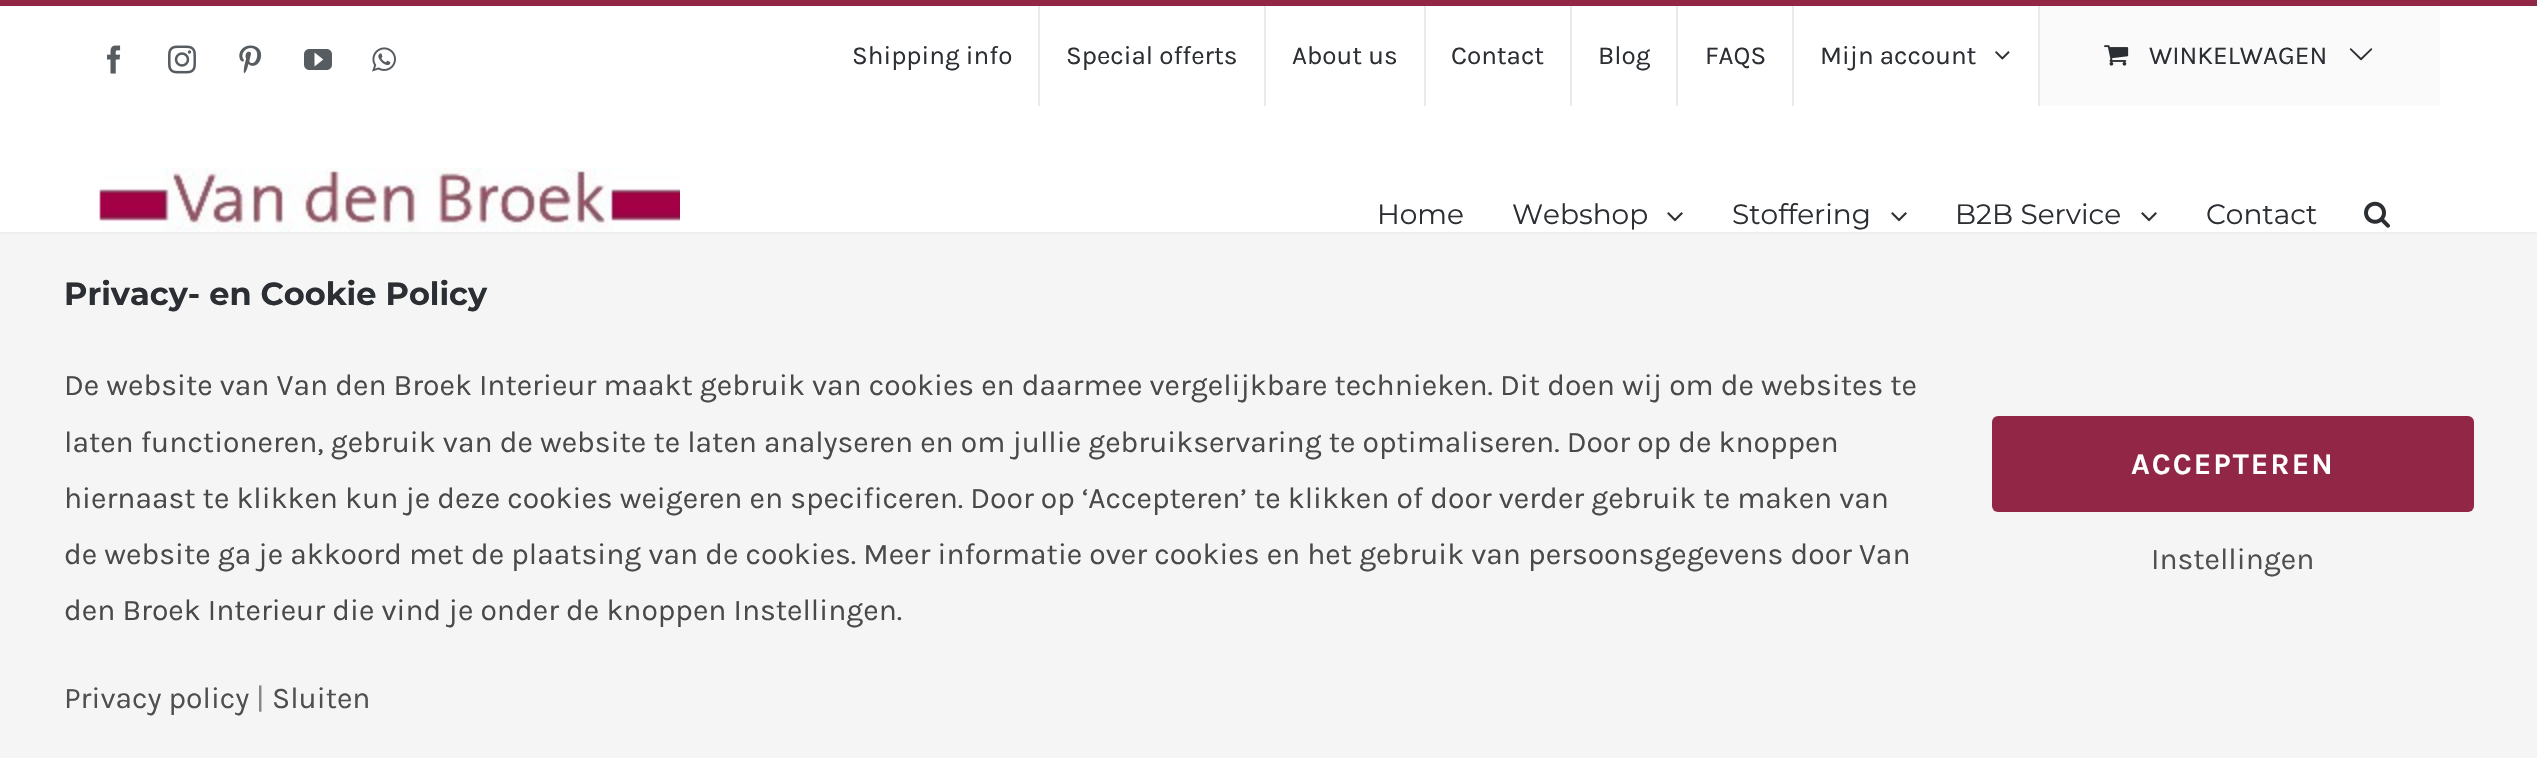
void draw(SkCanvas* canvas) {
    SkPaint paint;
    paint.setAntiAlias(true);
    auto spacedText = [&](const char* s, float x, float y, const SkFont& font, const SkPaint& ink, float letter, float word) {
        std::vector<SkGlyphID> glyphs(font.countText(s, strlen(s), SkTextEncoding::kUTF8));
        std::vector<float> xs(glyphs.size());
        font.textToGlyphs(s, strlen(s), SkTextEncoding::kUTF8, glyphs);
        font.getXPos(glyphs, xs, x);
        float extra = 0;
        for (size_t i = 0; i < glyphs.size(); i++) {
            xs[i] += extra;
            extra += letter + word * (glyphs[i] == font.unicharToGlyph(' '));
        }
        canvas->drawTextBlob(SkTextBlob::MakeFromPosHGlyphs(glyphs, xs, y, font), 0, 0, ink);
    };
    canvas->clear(0xFFFFFFFF);
    paint.setColor(0xFF912647);
    canvas->drawRect(SkRect::MakeXYWH(0, 0, 2537, 6), paint);
    canvas->drawImageRect(SkImages::DeferredFromEncodedData(SkData::MakeFromFileName("img1.png")), SkRect::MakeXYWH(107, 45, 14, 29), SkSamplingOptions());
    canvas->drawImageRect(SkImages::DeferredFromEncodedData(SkData::MakeFromFileName("img2.png")), SkRect::MakeXYWH(168, 45, 28, 29), SkSamplingOptions());
    canvas->drawImageRect(SkImages::DeferredFromEncodedData(SkData::MakeFromFileName("img3.png")), SkRect::MakeXYWH(239, 45, 23, 29), SkSamplingOptions());
    canvas->drawImageRect(SkImages::DeferredFromEncodedData(SkData::MakeFromFileName("img4.png")), SkRect::MakeXYWH(304, 49, 28, 21), SkSamplingOptions());
    canvas->drawImageRect(SkImages::DeferredFromEncodedData(SkData::MakeFromFileName("img5.png")), SkRect::MakeXYWH(372, 47, 24, 25), SkSamplingOptions());
    SkFont font1(fontMgr->matchFamilyStyle("Karla", SkFontStyle::Normal()), 26);
    font1.setSubpixel(true);
    paint.setColor(0xFF2B2E32);
    canvas->drawString("Shipping info", 852, 64, font1, paint);
    paint.setColor(0xFFEAEAEA);
    canvas->drawRect(SkRect::MakeXYWH(1038, 6, 2, 100), paint);
    paint.setColor(0xFF2B2E32);
    canvas->drawString("Special offerts", 1066, 64, font1, paint);
    paint.setColor(0xFFEAEAEA);
    canvas->drawRect(SkRect::MakeXYWH(1264, 6, 2, 100), paint);
    paint.setColor(0xFF2B2E32);
    canvas->drawString("About us", 1292, 64, font1, paint);
    paint.setColor(0xFFEAEAEA);
    canvas->drawRect(SkRect::MakeXYWH(1424, 6, 2, 100), paint);
    paint.setColor(0xFF2B2E32);
    canvas->drawString("Contact", 1451, 64, font1, paint);
    paint.setColor(0xFFEAEAEA);
    canvas->drawRect(SkRect::MakeXYWH(1570, 6, 2, 100), paint);
    paint.setColor(0xFF2B2E32);
    canvas->drawString("Blog", 1598, 64, font1, paint);
    paint.setColor(0xFFEAEAEA);
    canvas->drawRect(SkRect::MakeXYWH(1676, 6, 2, 100), paint);
    paint.setColor(0xFF2B2E32);
    canvas->drawString("FAQS", 1705, 64, font1, paint);
    paint.setColor(0xFFEAEAEA);
    canvas->drawRect(SkRect::MakeXYWH(1792, 6, 2, 100), paint);
    paint.setColor(0xFF2B2E32);
    canvas->drawString("Mijn account", 1820, 64, font1, paint);
    canvas->drawImageRect(SkImages::DeferredFromEncodedData(SkData::MakeFromFileName("img6.png")), SkRect::MakeXYWH(1995, 51, 15, 9), SkSamplingOptions());
    paint.setColor(0xFFEAEAEA);
    canvas->drawRect(SkRect::MakeXYWH(2038, 6, 2, 100), paint);
    paint.setColor(0xFFFAFAFA);
    canvas->drawRect(SkRect::MakeXYWH(2040, 6, 400, 100), paint);
    canvas->drawImageRect(SkImages::DeferredFromEncodedData(SkData::MakeFromFileName("img7.png")), SkRect::MakeXYWH(2104, 45, 25, 21), SkSamplingOptions());
    paint.setColor(0xFF2B2E32);
    canvas->drawString("WINKELWAGEN", 2149, 64, font1, paint);
    canvas->drawImageRect(SkImages::DeferredFromEncodedData(SkData::MakeFromFileName("img8.png")), SkRect::MakeXYWH(2349, 48, 24, 13), SkSamplingOptions());
    canvas->drawImageRect(SkImages::DeferredFromEncodedData(SkData::MakeFromFileName("img9.png")), SkRect::MakeXYWH(99, 168, 581, 64), SkSamplingOptions());
    SkFont font2(fontMgr->matchFamilyStyle("Montserrat", SkFontStyle::Normal()), 28);
    font2.setSubpixel(true);
    canvas->drawString("Home", 1377, 224, font2, paint);
    canvas->drawString("Webshop", 1512, 224, font2, paint);
    canvas->drawImageRect(SkImages::DeferredFromEncodedData(SkData::MakeFromFileName("img10.png")), SkRect::MakeXYWH(1667, 212, 16, 10), SkSamplingOptions());
    canvas->drawString("Stoffering", 1732, 224, font2, paint);
    canvas->drawImageRect(SkImages::DeferredFromEncodedData(SkData::MakeFromFileName("img10.png")), SkRect::MakeXYWH(1891, 212, 16, 10), SkSamplingOptions());
    canvas->drawString("B2B Service", 1955, 224, font2, paint);
    canvas->drawImageRect(SkImages::DeferredFromEncodedData(SkData::MakeFromFileName("img10.png")), SkRect::MakeXYWH(2141, 212, 16, 10), SkSamplingOptions());
    canvas->drawString("Contact", 2206, 224, font2, paint);
    canvas->drawImageRect(SkImages::DeferredFromEncodedData(SkData::MakeFromFileName("img11.png")), SkRect::MakeXYWH(2364, 201, 26, 27), SkSamplingOptions());
    paint.setColor(0xFFF5F5F5);
    canvas->drawRect(SkRect::MakeXYWH(0, 234, 2537, 524), paint);
    paint.setColor(0xFFEEEEEE);
    canvas->drawRect(SkRect::MakeXYWH(0, 232, 2537, 2), paint);
    SkFont font3(fontMgr->matchFamilyStyle("Montserrat", SkFontStyle::Bold()), 32);
    font3.setSubpixel(true);
    paint.setColor(0xFF2B2E32);
    canvas->drawString("Privacy- en Cookie Policy", 64, 305, font3, paint);
    SkFont font4(fontMgr->matchFamilyStyle("Karla", SkFontStyle::Normal()), 30);
    font4.setSubpixel(true);
    paint.setColor(0xFF494949);
    canvas->drawString("De website van Van den Broek Interieur maakt gebruik van cookies en daarmee vergelijkbare technieken. Dit doen wij om de websites te", 64, 395, font4, paint);
    canvas->drawString("laten functioneren, gebruik van de website te laten analyseren en om jullie gebruikservaring te optimaliseren. Door op de knoppen", 64, 452, font4, paint);
    canvas->drawString("hiernaast te klikken kun je deze cookies weigeren en specificeren. Door op ‘Accepteren’ te klikken of door verder gebruik te maken van", 64, 508, font4, paint);
    canvas->drawString("de website ga je akkoord met de plaatsing van de cookies. Meer informatie over cookies en het gebruik van persoonsgegevens door Van", 64, 564, font4, paint);
    canvas->drawString("den Broek Interieur die vind je onder de knoppen Instellingen.", 64, 620, font4, paint);
    paint.setColor(0xFF4F4F4F);
    canvas->drawString("Privacy policy", 64, 708, font4, paint);
    paint.setColor(0xFF858585);
    canvas->drawString("|", 256, 708, font4, paint);
    paint.setColor(0xFF4F4F4F);
    canvas->drawString("Sluiten", 272, 708, font4, paint);
    paint.setColor(0xFF912647);
    canvas->drawRoundRect(SkRect::MakeXYWH(1992, 416, 482, 96), 6, 6, paint);
    SkFont font5(fontMgr->matchFamilyStyle("Karla", SkFontStyle::Bold()), 30);
    font5.setSubpixel(true);
    paint.setColor(0xFFFFFFFF);
    spacedText("ACCEPTEREN", 2131, 474, font5, paint, 2, 0);
    paint.setColor(0xFF4F4F4F);
    canvas->drawString("Instellingen", 2151, 569, font4, paint);
}
